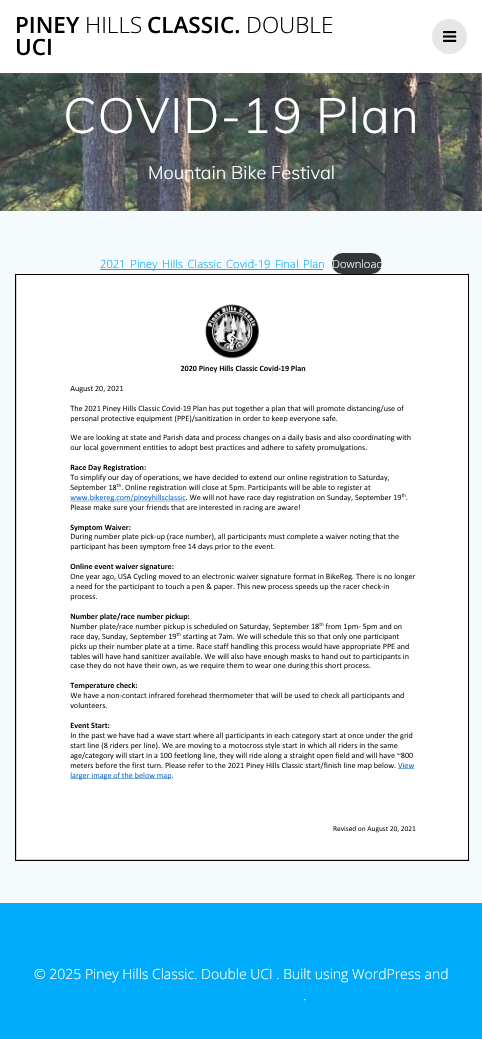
void draw(SkCanvas* canvas) {
    SkPaint paint;
    paint.setAntiAlias(true);
    auto spacedText = [&](const char* s, float x, float y, const SkFont& font, const SkPaint& ink, float letter, float word) {
        std::vector<SkGlyphID> glyphs(font.countText(s, strlen(s), SkTextEncoding::kUTF8));
        std::vector<float> xs(glyphs.size());
        font.textToGlyphs(s, strlen(s), SkTextEncoding::kUTF8, glyphs);
        font.getXPos(glyphs, xs, x);
        float extra = 0;
        for (size_t i = 0; i < glyphs.size(); i++) {
            xs[i] += extra;
            extra += letter + word * (glyphs[i] == font.unicharToGlyph(' '));
        }
        canvas->drawTextBlob(SkTextBlob::MakeFromPosHGlyphs(glyphs, xs, y, font), 0, 0, ink);
    };
    canvas->clear(0xFFFFFFFF);
    SkFont font1(fontMgr->matchFamilyStyle("Open Sans", SkFontStyle(600, SkFontStyle::kNormal_Width, SkFontStyle::kUpright_Slant)), 22.5f);
    font1.setSubpixel(true);
    paint.setColor(0xFF000000);
    canvas->drawString("PINEY", 15, 33, font1, paint);
    SkFont font2(fontMgr->matchFamilyStyle("Open Sans", SkFontStyle(300, SkFontStyle::kNormal_Width, SkFontStyle::kUpright_Slant)), 22.5f);
    font2.setSubpixel(true);
    canvas->drawString("HILLS", 85, 33, font2, paint);
    canvas->drawString("CLASSIC.", 147, 33, font1, paint);
    canvas->drawString("DOUBLE", 246, 33, font2, paint);
    canvas->drawString("UCI", 15, 55, font1, paint);
    paint.setColor(0xFFE6E6E6);
    canvas->drawCircle(449.5f, 36.5f, 17.5f, paint);
    canvas->drawImageRect(SkImages::DeferredFromEncodedData(SkData::MakeFromFileName("img1.png")), SkRect::MakeXYWH(443, 31, 14, 11), SkSamplingOptions());
    canvas->drawImageRect(SkImages::DeferredFromEncodedData(SkData::MakeFromFileName("img2.png")), SkRect::MakeXYWH(0, 73, 482, 138), SkSamplingOptions());
    SkFont font3(fontMgr->matchFamilyStyle("Muli", SkFontStyle(300, SkFontStyle::kNormal_Width, SkFontStyle::kUpright_Slant)), 49);
    font3.setSubpixel(true);
    paint.setColor(0xFFFFFFFF);
    spacedText("COVID-19 Plan", 63, 133, font3, paint, 0.9f, 0);
    SkFont font4(fontMgr->matchFamilyStyle("Muli", SkFontStyle(300, SkFontStyle::kNormal_Width, SkFontStyle::kUpright_Slant)), 18.25f);
    font4.setSubpixel(true);
    canvas->drawString("Mountain Bike Festival", 148, 179, font4, paint);
    paint.setColor(0xFFF5FAFD);
    canvas->drawRect(SkRect::MakeXYWH(0, 211, 482, 692), paint);
    paint.setColor(0xFF03A9F4);
    canvas->drawRect(SkRect::MakeXYWH(100, 269, 223, 1), paint);
    SkFont font5(fontMgr->matchFamilyStyle("Open Sans", SkFontStyle(300, SkFontStyle::kNormal_Width, SkFontStyle::kUpright_Slant)), 11.25f);
    font5.setSubpixel(true);
    canvas->drawString("2021_Piney_Hills_Classic_Covid-19_Final_Plan", 100, 268, font5, paint);
    paint.setColor(0xFF32373C);
    canvas->drawRoundRect(SkRect::MakeXYWH(332, 253, 50, 21), 10.5f, 10.5f, paint);
    paint.setColor(0xFFFFFFFF);
    canvas->drawString("Download", 332, 268, font5, paint);
    paint.setColor(0xFFD3D3D3);
    canvas->drawRect(SkRect::MakeXYWH(15.5f, 274.5f, 453, 586), paint);
    paint.setStyle(SkPaint::kStroke_Style);
    paint.setStrokeWidth(1);
    paint.setColor(0xFF000000);
    canvas->drawRect(SkRect::MakeXYWH(15.5f, 274.5f, 453, 586), paint);
    paint.setStyle(SkPaint::kFill_Style);
    paint.setColor(0xFFFFFFFF);
    canvas->drawRect(SkRect::MakeXYWH(17, 275, 451, 584), paint);
    canvas->drawImageRect(SkImages::DeferredFromEncodedData(SkData::MakeFromFileName("img3.png")), SkRect::MakeXYWH(70, 304, 346, 529), SkSamplingOptions());
    paint.setColor(0xFF00ABFA);
    canvas->drawRect(SkRect::MakeXYWH(0, 903, 482, 136), paint);
    SkFont font6(fontMgr->matchFamilyStyle("Open Sans", SkFontStyle(300, SkFontStyle::kNormal_Width, SkFontStyle::kUpright_Slant)), 14);
    font6.setSubpixel(true);
    paint.setColor(0xFFFFFFFF);
    canvas->drawString("© 2025 Piney Hills Classic. Double UCI . Built using WordPress and", 34, 979, font6, paint);
    canvas->drawString(".", 303, 1000, font6, paint);
    paint.setColor(0xFF03A9F4);
    canvas->drawRect(SkRect::MakeXYWH(176, 1001, 127, 1), paint);
}
